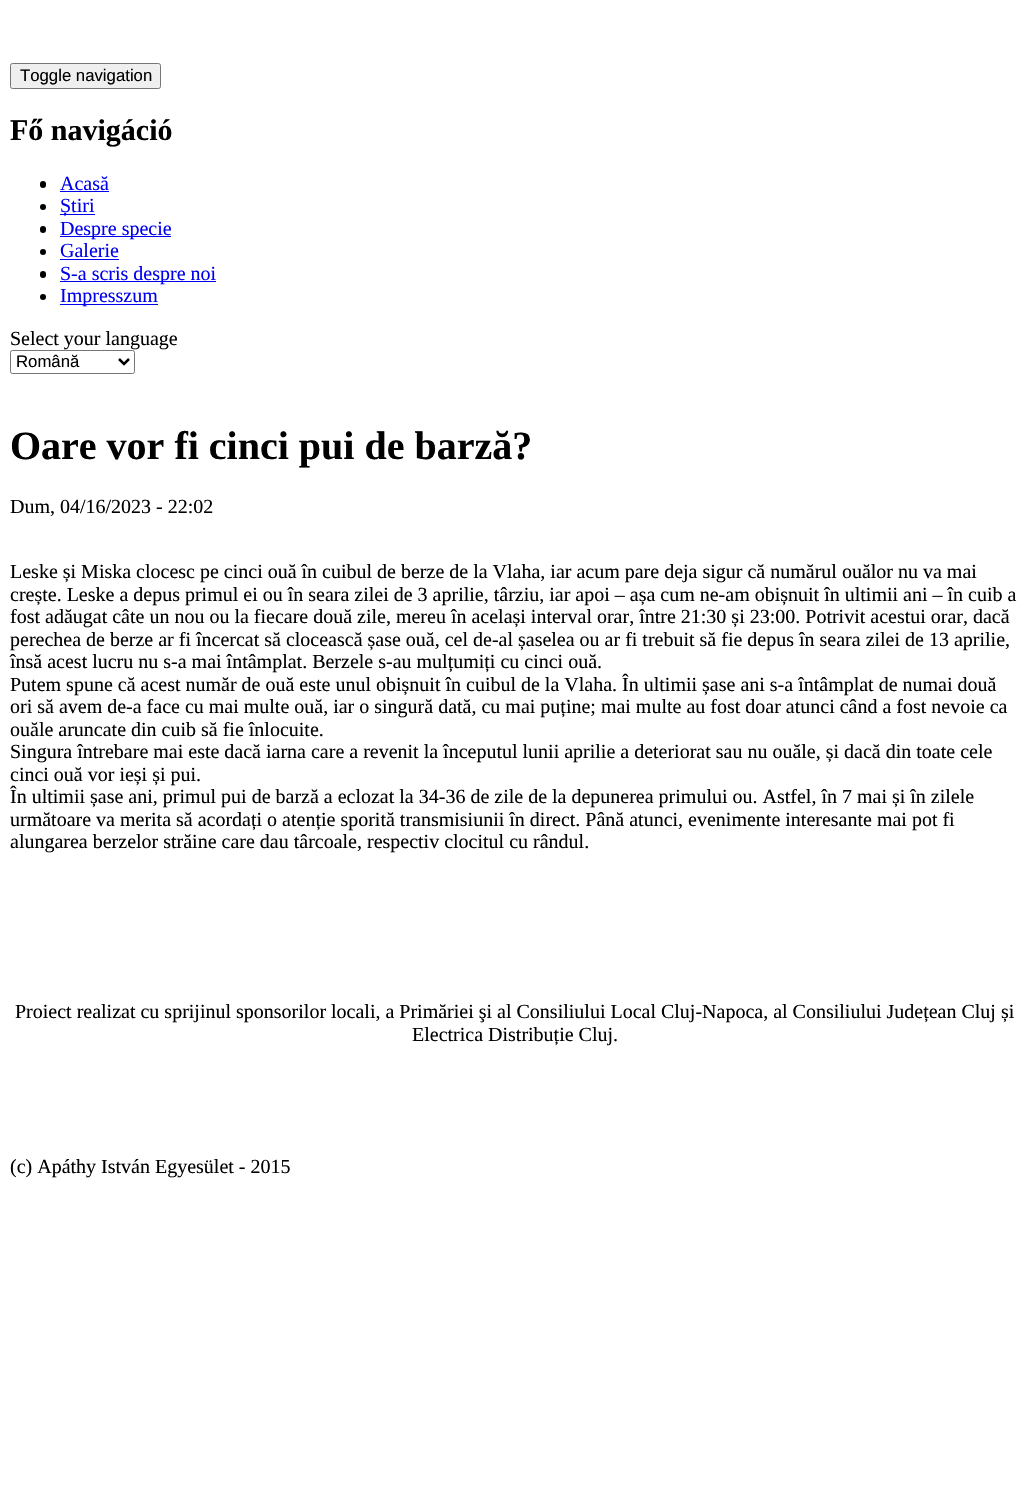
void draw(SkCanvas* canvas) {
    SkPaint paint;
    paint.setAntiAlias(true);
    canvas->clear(0xFFFFFFFF);
    paint.setColor(0xFFEFEFEF);
    canvas->drawRoundRect(SkRect::MakeXYWH(10.5f, 63.5f, 150, 25), 2, 2, paint);
    paint.setStyle(SkPaint::kStroke_Style);
    paint.setStrokeWidth(1);
    paint.setColor(0xFF767676);
    canvas->drawRoundRect(SkRect::MakeXYWH(10.5f, 63.5f, 150, 25), 2, 2, paint);
    SkFont font1(fontMgr->matchFamilyStyle("Liberation Sans", SkFontStyle::Normal()), 16.75f);
    font1.setSubpixel(true);
    paint.setStyle(SkPaint::kFill_Style);
    paint.setColor(0xFF000000);
    canvas->drawString("Toggle navigation", 20, 81, font1, paint);
    SkFont font2(fontMgr->matchFamilyStyle("Liberation Serif", SkFontStyle::Bold()), 30);
    font2.setSubpixel(true);
    canvas->drawString("Fő navigáció", 10, 140, font2, paint);
    canvas->drawRoundRect(SkRect::MakeXYWH(40, 181, 6, 7), 3, 3, paint);
    SkFont font3(fontMgr->matchFamilyStyle("Liberation Serif", SkFontStyle::Normal()), 20);
    font3.setSubpixel(true);
    paint.setColor(0xFF0000EE);
    canvas->drawString("Acasă", 60, 190, font3, paint);
    canvas->drawRect(SkRect::MakeXYWH(60, 191, 49, 1), paint);
    paint.setColor(0xFF000000);
    canvas->drawCircle(43, 207, 3, paint);
    paint.setColor(0xFF0000EE);
    canvas->drawRect(SkRect::MakeXYWH(60, 214, 35, 1), paint);
    canvas->drawString("Știri", 60, 212, font3, paint);
    paint.setColor(0xFF000000);
    canvas->drawRoundRect(SkRect::MakeXYWH(40, 226, 6, 7), 3, 3, paint);
    paint.setColor(0xFF0000EE);
    canvas->drawRect(SkRect::MakeXYWH(60, 236, 111, 1), paint);
    canvas->drawString("Despre specie", 60, 235, font3, paint);
    paint.setColor(0xFF000000);
    canvas->drawCircle(43, 252, 3, paint);
    paint.setColor(0xFF0000EE);
    canvas->drawString("Galerie", 60, 257, font3, paint);
    canvas->drawRect(SkRect::MakeXYWH(60, 259, 59, 1), paint);
    paint.setColor(0xFF000000);
    canvas->drawRoundRect(SkRect::MakeXYWH(40, 271, 6, 7), 3, 3, paint);
    paint.setColor(0xFF0000EE);
    canvas->drawRect(SkRect::MakeXYWH(60, 281, 156, 1), paint);
    canvas->drawString("S-a scris despre noi", 60, 280, font3, paint);
    paint.setColor(0xFF000000);
    canvas->drawCircle(43, 297, 3, paint);
    paint.setColor(0xFF0000EE);
    canvas->drawRect(SkRect::MakeXYWH(60, 304, 98, 1), paint);
    canvas->drawString("Impresszum", 60, 302, font3, paint);
    paint.setColor(0xFF000000);
    canvas->drawString("Select your language", 10, 345, font3, paint);
    paint.setStyle(SkPaint::kStroke_Style);
    paint.setColor(0xFF767676);
    canvas->drawRoundRect(SkRect::MakeXYWH(10.5f, 350.5f, 124, 23), 2, 2, paint);
    paint.setStrokeWidth(2.5f);
    paint.setColor(0xFF000000);
    canvas->drawPath(SkPathBuilder().moveTo(119, 359).lineTo(124, 364).lineTo(129, 359).detach(), paint);
    paint.setStyle(SkPaint::kFill_Style);
    canvas->drawString("Română", 16, 367, font1, paint);
    SkFont font4(fontMgr->matchFamilyStyle("Liberation Serif", SkFontStyle::Bold()), 40);
    font4.setSubpixel(true);
    canvas->drawString("Oare vor fi cinci pui de barză?", 10, 459, font4, paint);
    canvas->drawString("Dum, 04/16/2023 - 22:02", 10, 513, font3, paint);
    canvas->drawString("Leske și Miska clocesc pe cinci ouă în cuibul de berze de la Vlaha, iar acum pare deja sigur că numărul ouălor nu va mai", 10, 578, font3, paint);
    canvas->drawString("crește. Leske a depus primul ei ou în seara zilei de 3 aprilie, târziu, iar apoi – așa cum ne-am obișnuit în ultimii ani – în cuib a", 10, 601, font3, paint);
    canvas->drawString("fost adăugat câte un nou ou la fiecare două zile, mereu în același interval orar, între 21:30 și 23:00. Potrivit acestui orar, dacă", 10, 623, font3, paint);
    canvas->drawString("perechea de berze ar fi încercat să clocească șase ouă, cel de-al șaselea ou ar fi trebuit să fie depus în seara zilei de 13 aprilie,", 10, 646, font3, paint);
    canvas->drawString("însă acest lucru nu s-a mai întâmplat. Berzele s-au mulțumiți cu cinci ouă.", 10, 668, font3, paint);
    canvas->drawString("Putem spune că acest număr de ouă este unul obișnuit în cuibul de la Vlaha. În ultimii șase ani s-a întâmplat de numai două", 10, 691, font3, paint);
    canvas->drawString("ori să avem de-a face cu mai multe ouă, iar o singură dată, cu mai puține; mai multe au fost doar atunci când a fost nevoie ca", 10, 713, font3, paint);
    canvas->drawString("ouăle aruncate din cuib să fie înlocuite.", 10, 736, font3, paint);
    canvas->drawString("Singura întrebare mai este dacă iarna care a revenit la începutul lunii aprilie a deteriorat sau nu ouăle, și dacă din toate cele", 10, 758, font3, paint);
    canvas->drawString("cinci ouă vor ieși și pui.", 10, 781, font3, paint);
    canvas->drawString("În ultimii șase ani, primul pui de barză a eclozat la 34-36 de zile de la depunerea primului ou. Astfel, în 7 mai și în zilele", 10, 803, font3, paint);
    canvas->drawString("următoare va merita să acordați o atenție sporită transmisiunii în direct. Până atunci, evenimente interesante mai pot fi", 10, 826, font3, paint);
    canvas->drawString("alungarea berzelor străine care dau târcoale, respectiv clocitul cu rândul.", 10, 848, font3, paint);
    canvas->drawString("Proiect realizat cu sprijinul sponsorilor locali, a Primăriei şi al Consiliului Local Cluj-Napoca, al Consiliului Județean Cluj și", 15, 1018, font3, paint);
    canvas->drawString("Electrica Distribuție Cluj.", 412, 1041, font3, paint);
    canvas->drawString("(c) Apáthy István Egyesület - 2015", 10, 1173, font3, paint);
}
